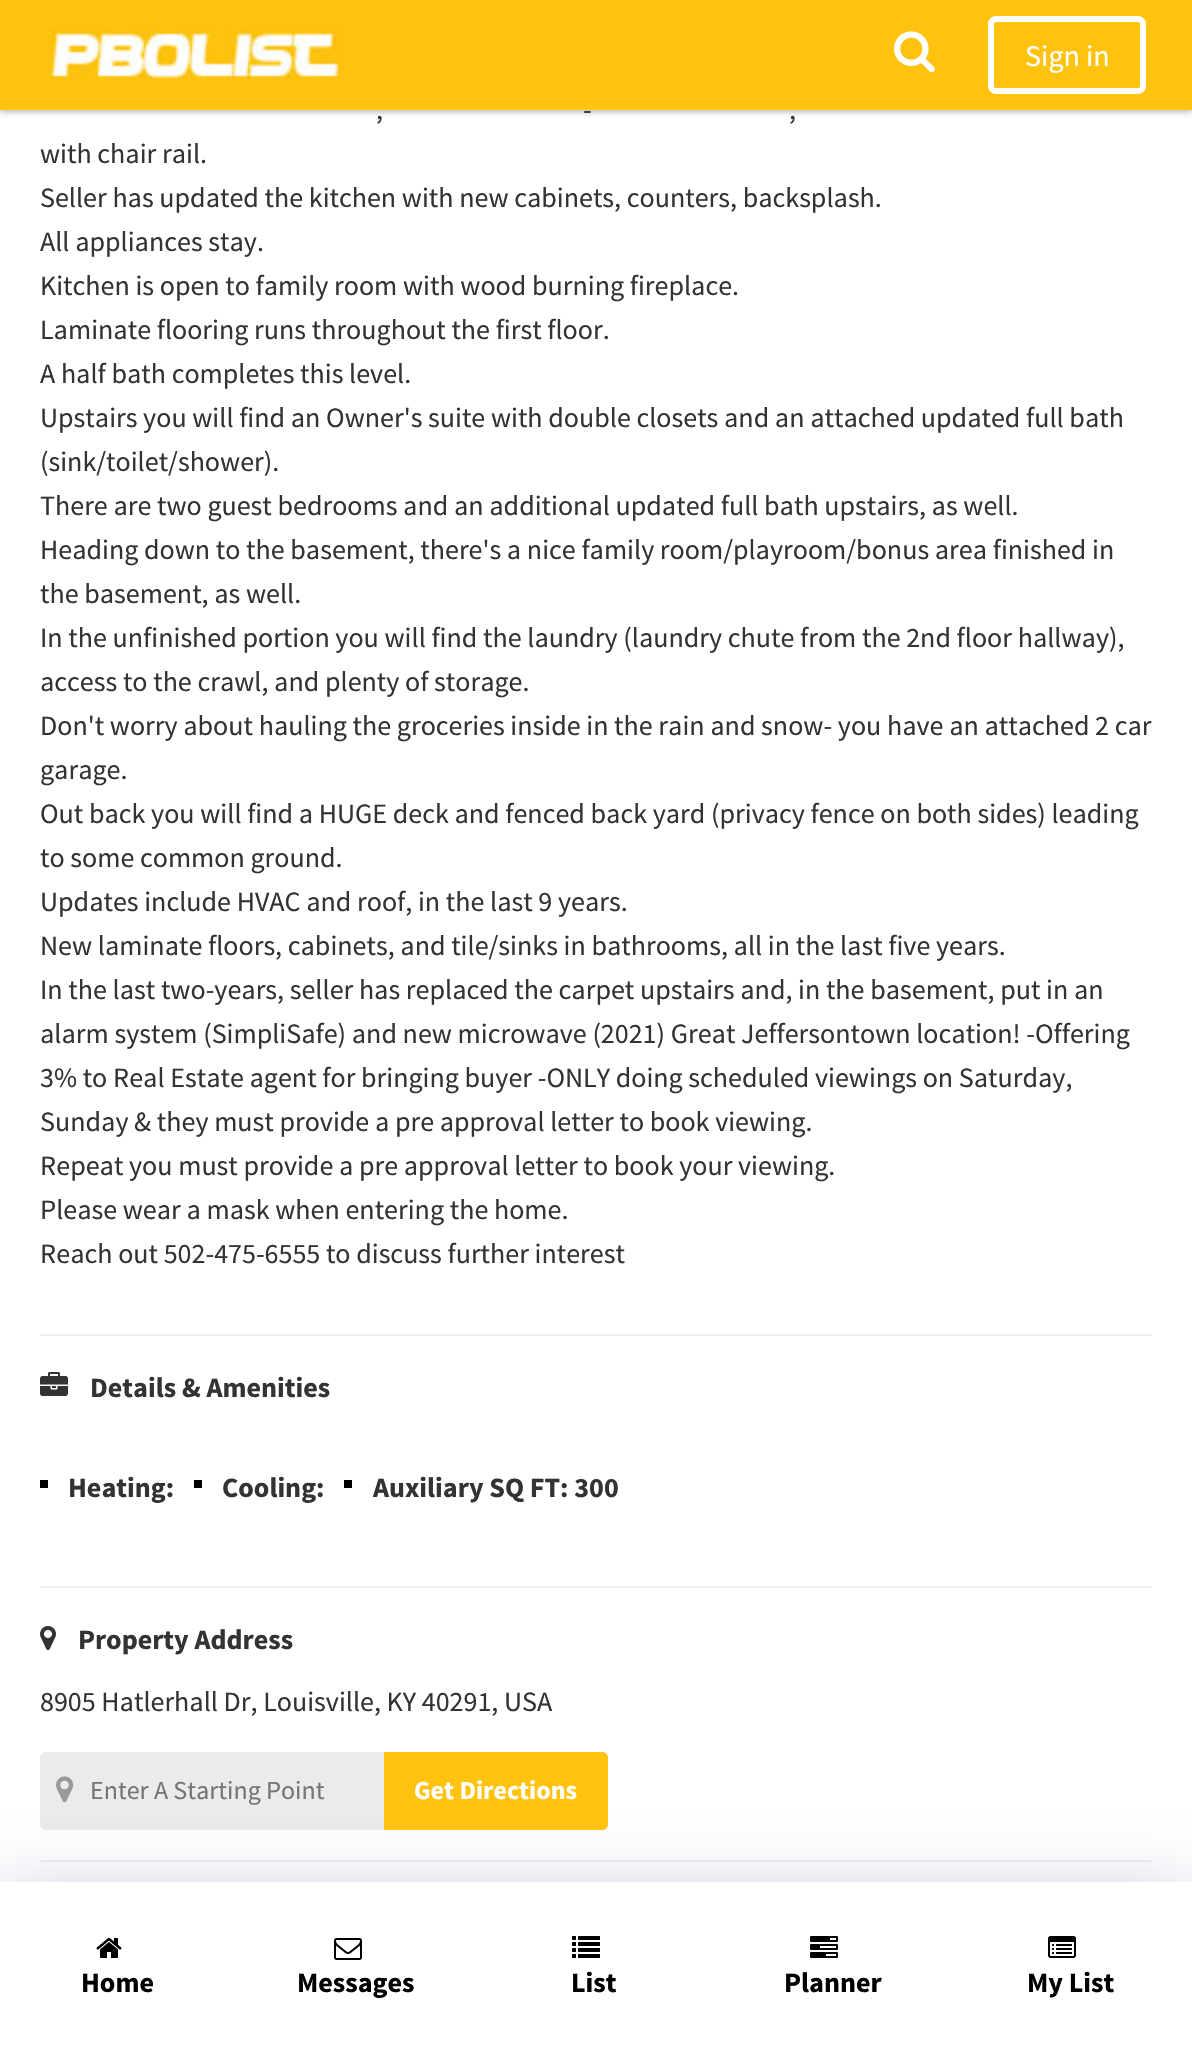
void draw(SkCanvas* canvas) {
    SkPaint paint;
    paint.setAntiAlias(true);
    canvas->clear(0xFFFFFFFF);
    paint.setColor(0x59323232);
    paint.setMaskFilter(SkMaskFilter::MakeBlur(kNormal_SkBlurStyle, 3));
    canvas->drawRect(SkRect::MakeXYWH(0, 2, 1192, 110), paint);
    paint.setMaskFilter(nullptr);
    paint.setColor(0xFFFFC20F);
    canvas->drawRect(SkRect::MakeXYWH(0, 0, 1192, 110), paint);
    canvas->drawImageRect(SkImages::DeferredFromEncodedData(SkData::MakeFromFileName("img1.png")), SkRect::MakeXYWH(50, 30, 289, 49), SkSamplingOptions());
    canvas->drawImageRect(SkImages::DeferredFromEncodedData(SkData::MakeFromFileName("img2.png")), SkRect::MakeXYWH(894, 31, 41, 42), SkSamplingOptions());
    paint.setStyle(SkPaint::kStroke_Style);
    paint.setStrokeWidth(6);
    paint.setColor(0xFFFFFFFF);
    canvas->drawRoundRect(SkRect::MakeXYWH(991, 19, 152, 72), 5, 5, paint);
    SkFont font1(fontMgr->matchFamilyStyle("Source Sans Pro", SkFontStyle::Normal()), 30);
    font1.setSubpixel(true);
    paint.setStyle(SkPaint::kFill_Style);
    canvas->drawString("Sign in", 1025, 66, font1, paint);
    SkFont font2(fontMgr->matchFamilyStyle("Source Sans Pro", SkFontStyle::Normal()), 28);
    font2.setSubpixel(true);
    paint.setColor(0xFF333333);
    canvas->drawString("-", 583, 119, font2, paint);
    canvas->drawString(",", 376, 119, font2, paint);
    canvas->drawString(",", 789, 119, font2, paint);
    canvas->drawString("with chair rail.", 40, 163, font2, paint);
    canvas->drawString("Seller has updated the kitchen with new cabinets, counters, backsplash.", 40, 207, font2, paint);
    canvas->drawString("All appliances stay.", 40, 251, font2, paint);
    canvas->drawString("Kitchen is open to family room with wood burning fireplace.", 40, 295, font2, paint);
    canvas->drawString("Laminate flooring runs throughout the first floor.", 40, 339, font2, paint);
    canvas->drawString("A half bath completes this level.", 40, 383, font2, paint);
    canvas->drawString("Upstairs you will find an Owner's suite with double closets and an attached updated full bath", 40, 427, font2, paint);
    canvas->drawString("(sink/toilet/shower).", 40, 471, font2, paint);
    canvas->drawString("There are two guest bedrooms and an additional updated full bath upstairs, as well.", 40, 515, font2, paint);
    canvas->drawString("Heading down to the basement, there's a nice family room/playroom/bonus area finished in", 40, 559, font2, paint);
    canvas->drawString("the basement, as well.", 40, 603, font2, paint);
    canvas->drawString("In the unfinished portion you will find the laundry (laundry chute from the 2nd floor hallway),", 40, 647, font2, paint);
    canvas->drawString("access to the crawl, and plenty of storage.", 40, 691, font2, paint);
    canvas->drawString("Don't worry about hauling the groceries inside in the rain and snow- you have an attached 2 car", 40, 735, font2, paint);
    canvas->drawString("garage.", 40, 779, font2, paint);
    canvas->drawString("Out back you will find a HUGE deck and fenced back yard (privacy fence on both sides) leading", 40, 823, font2, paint);
    canvas->drawString("to some common ground.", 40, 867, font2, paint);
    canvas->drawString("Updates include HVAC and roof, in the last 9 years.", 40, 911, font2, paint);
    canvas->drawString("New laminate floors, cabinets, and tile/sinks in bathrooms, all in the last five years.", 40, 955, font2, paint);
    canvas->drawString("In the last two-years, seller has replaced the carpet upstairs and, in the basement, put in an", 40, 999, font2, paint);
    canvas->drawString("alarm system (SimpliSafe) and new microwave (2021) Great Jeffersontown location! -Offering", 40, 1043, font2, paint);
    canvas->drawString("3% to Real Estate agent for bringing buyer -ONLY doing scheduled viewings on Saturday,", 40, 1087, font2, paint);
    canvas->drawString("Sunday & they must provide a pre approval letter to book viewing.", 40, 1131, font2, paint);
    canvas->drawString("Repeat you must provide a pre approval letter to book your viewing.", 40, 1175, font2, paint);
    canvas->drawString("Please wear a mask when entering the home.", 40, 1219, font2, paint);
    canvas->drawString("Reach out 502-475-6555 to discuss further interest", 40, 1263, font2, paint);
    paint.setColor(0xFFEEEEEE);
    canvas->drawRect(SkRect::MakeXYWH(40, 1334, 1112, 2), paint);
    canvas->drawImageRect(SkImages::DeferredFromEncodedData(SkData::MakeFromFileName("img3.png")), SkRect::MakeXYWH(40, 1372, 28, 24), SkSamplingOptions());
    SkFont font3(fontMgr->matchFamilyStyle("Source Sans Pro", SkFontStyle::Bold()), 28);
    font3.setSubpixel(true);
    paint.setColor(0xFF333333);
    canvas->drawString("Details & Amenities", 90, 1397, font3, paint);
    paint.setColor(0xFF000000);
    canvas->drawRect(SkRect::MakeXYWH(40, 1480, 8, 8), paint);
    paint.setColor(0xFF333333);
    canvas->drawString("Heating:", 68, 1497, font3, paint);
    paint.setColor(0xFF000000);
    canvas->drawRect(SkRect::MakeXYWH(194, 1480, 8, 8), paint);
    paint.setColor(0xFF333333);
    canvas->drawString("Cooling:", 222, 1497, font3, paint);
    paint.setColor(0xFF000000);
    canvas->drawRect(SkRect::MakeXYWH(344, 1480, 8, 8), paint);
    paint.setColor(0xFF333333);
    canvas->drawString("Auxiliary SQ FT: 300", 373, 1497, font3, paint);
    paint.setColor(0xFFEEEEEE);
    canvas->drawRect(SkRect::MakeXYWH(40, 1586, 1112, 2), paint);
    canvas->drawImageRect(SkImages::DeferredFromEncodedData(SkData::MakeFromFileName("img4.png")), SkRect::MakeXYWH(40, 1626, 16, 24), SkSamplingOptions());
    paint.setColor(0xFF333333);
    canvas->drawString("Property Address", 78, 1649, font3, paint);
    canvas->drawString("8905 Hatlerhall Dr, Louisville, KY 40291, USA", 40, 1711, font2, paint);
    paint.setColor(0xFFEBEBEB);
    canvas->drawPath(SkPathBuilder().moveTo(46, 1752).lineTo(384, 1752).lineTo(384, 1830).lineTo(46, 1830).cubicTo(42.5f, 1830, 40, 1827.5f, 40, 1824).lineTo(40, 1758).cubicTo(40, 1754.5f, 42.5f, 1752, 46, 1752).close().detach(), paint);
    canvas->drawImageRect(SkImages::DeferredFromEncodedData(SkData::MakeFromFileName("img5.png")), SkRect::MakeXYWH(56, 1776, 18, 27), SkSamplingOptions());
    SkFont font4(fontMgr->matchFamilyStyle("Source Sans Pro", SkFontStyle::Normal()), 26);
    font4.setSubpixel(true);
    paint.setColor(0xFF757575);
    canvas->drawString("Enter A Starting Point", 90, 1799, font4, paint);
    paint.setColor(0xFFFFC20F);
    canvas->drawPath(SkPathBuilder().moveTo(384, 1752).lineTo(602, 1752).cubicTo(605.5f, 1752, 608, 1754.5f, 608, 1758).lineTo(608, 1824).cubicTo(608, 1827.5f, 605.5f, 1830, 602, 1830).lineTo(384, 1830).close().detach(), paint);
    SkFont font5(fontMgr->matchFamilyStyle("Source Sans Pro", SkFontStyle::Bold()), 26);
    font5.setSubpixel(true);
    paint.setColor(0xFFFFFFFF);
    canvas->drawString("Get Directions", 414, 1799, font5, paint);
    paint.setColor(0xFFEEEEEE);
    canvas->drawRect(SkRect::MakeXYWH(40, 1860, 1112, 2), paint);
    paint.setColor(0xFFD7D8E9);
    paint.setMaskFilter(SkMaskFilter::MakeBlur(kNormal_SkBlurStyle, 30));
    canvas->drawRect(SkRect::MakeXYWH(0, 1882, 1192, 170), paint);
    paint.setMaskFilter(nullptr);
    paint.setColor(0xFFFFFFFF);
    canvas->drawRect(SkRect::MakeXYWH(0, 1882, 1192, 170), paint);
    canvas->drawImageRect(SkImages::DeferredFromEncodedData(SkData::MakeFromFileName("img6.png")), SkRect::MakeXYWH(96, 1938, 26, 20), SkSamplingOptions());
    paint.setColor(0xFF000000);
    canvas->drawString("Home", 81, 1992, font3, paint);
    canvas->drawImageRect(SkImages::DeferredFromEncodedData(SkData::MakeFromFileName("img7.png")), SkRect::MakeXYWH(334, 1938, 28, 22), SkSamplingOptions());
    canvas->drawString("Messages", 297, 1992, font3, paint);
    canvas->drawImageRect(SkImages::DeferredFromEncodedData(SkData::MakeFromFileName("img8.png")), SkRect::MakeXYWH(572, 1936, 28, 22), SkSamplingOptions());
    canvas->drawString("List", 571, 1992, font3, paint);
    canvas->drawImageRect(SkImages::DeferredFromEncodedData(SkData::MakeFromFileName("img9.png")), SkRect::MakeXYWH(810, 1936, 28, 22), SkSamplingOptions());
    canvas->drawString("Planner", 784, 1992, font3, paint);
    canvas->drawImageRect(SkImages::DeferredFromEncodedData(SkData::MakeFromFileName("img10.png")), SkRect::MakeXYWH(1048, 1936, 28, 22), SkSamplingOptions());
    canvas->drawString("My List", 1027, 1992, font3, paint);
}
